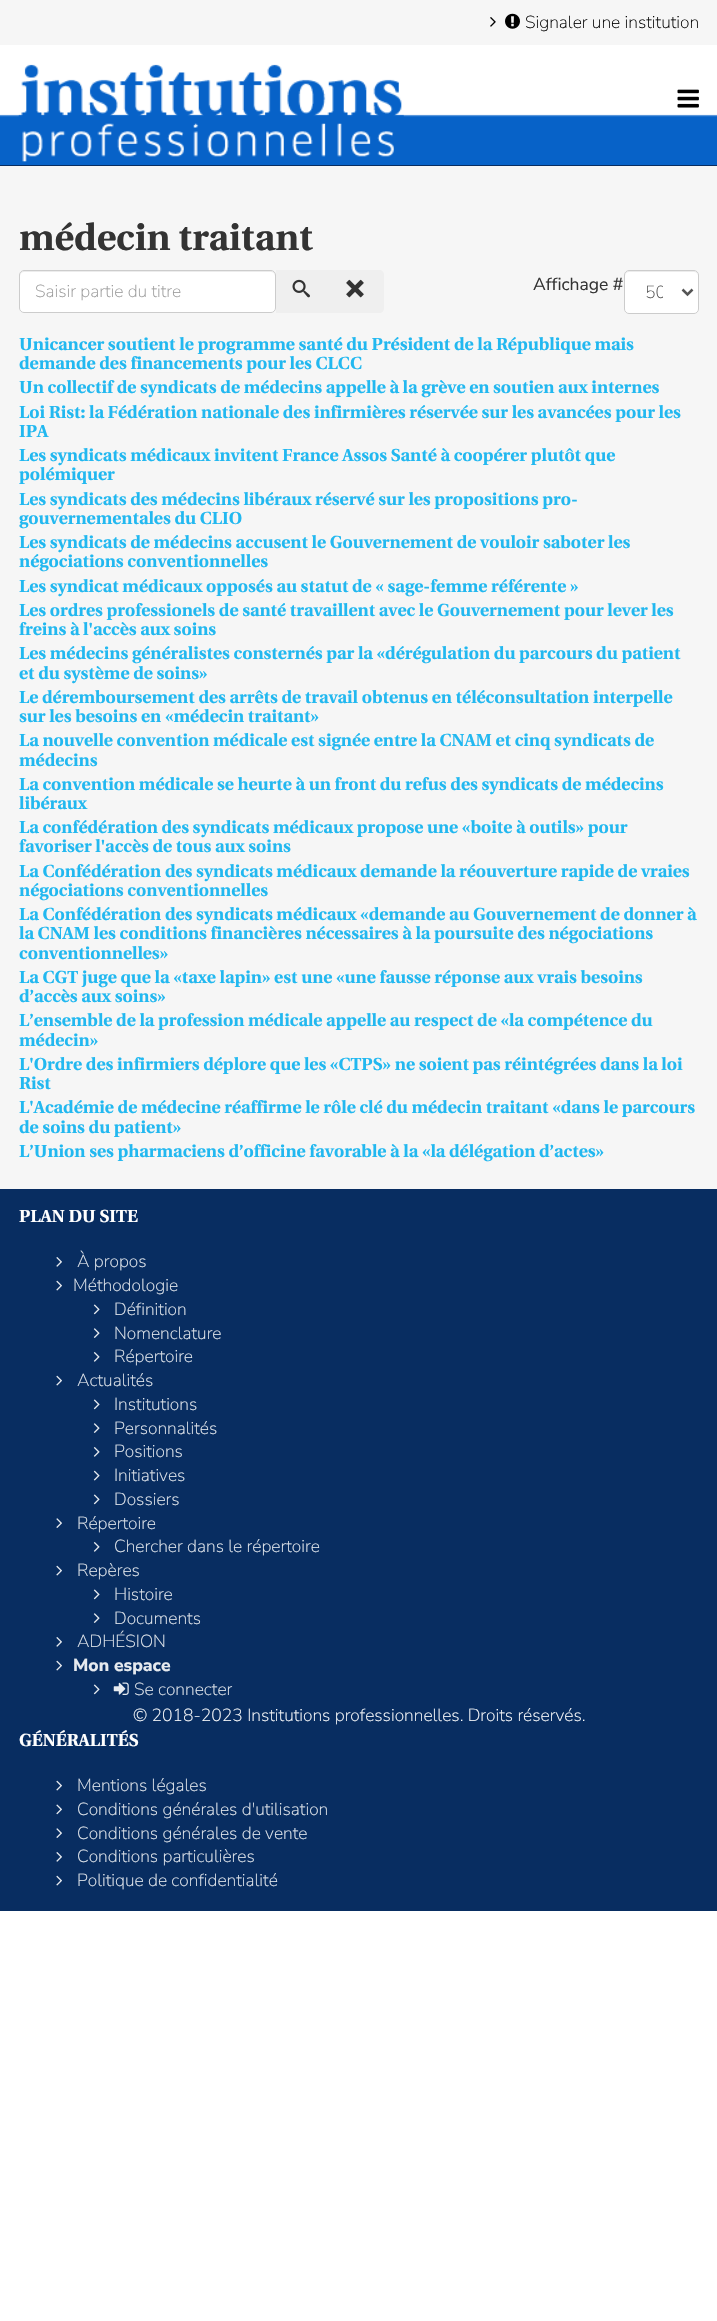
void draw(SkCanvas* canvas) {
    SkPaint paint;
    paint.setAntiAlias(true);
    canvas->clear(0xFFFFFFFF);
    paint.setColor(0xFFF6F6F6);
    canvas->drawRect(SkRect::MakeXYWH(0, 0, 717, 45), paint);
    canvas->drawImageRect(SkImages::DeferredFromEncodedData(SkData::MakeFromFileName("img1.png")), SkRect::MakeXYWH(490, 17, 6, 10), SkSamplingOptions());
    canvas->drawImageRect(SkImages::DeferredFromEncodedData(SkData::MakeFromFileName("img2.png")), SkRect::MakeXYWH(505, 13, 15, 16), SkSamplingOptions());
    SkFont font1(fontMgr->matchFamilyStyle("Nunito Sans", SkFontStyle(200, SkFontStyle::kNormal_Width, SkFontStyle::kUpright_Slant)), 17.5f);
    font1.setSubpixel(true);
    paint.setColor(0xFF000000);
    canvas->drawString("Signaler une institution", 525, 28, font1, paint);
    canvas->drawImageRect(SkImages::DeferredFromEncodedData(SkData::MakeFromFileName("img3.png")), SkRect::MakeXYWH(0, 114, 717, 51), SkSamplingOptions());
    canvas->drawImageRect(SkImages::DeferredFromEncodedData(SkData::MakeFromFileName("img4.png")), SkRect::MakeXYWH(18, 64, 386, 98), SkSamplingOptions());
    canvas->drawImageRect(SkImages::DeferredFromEncodedData(SkData::MakeFromFileName("img5.png")), SkRect::MakeXYWH(677, 89, 22, 19), SkSamplingOptions());
    paint.setColor(0xFF082D61);
    canvas->drawRect(SkRect::MakeXYWH(0, 165, 717, 1), paint);
    paint.setColor(0xFFF6F6F6);
    canvas->drawRect(SkRect::MakeXYWH(0, 166, 717, 1023), paint);
    SkFont font2(fontMgr->matchFamilyStyle("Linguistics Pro", SkFontStyle::Bold()), 37.5f);
    font2.setSubpixel(true);
    paint.setColor(0xFF333333);
    canvas->drawString("médecin traitant", 19, 250, font2, paint);
    paint.setColor(0xFFFFFFFF);
    canvas->drawRoundRect(SkRect::MakeXYWH(19, 270, 257, 43), 5, 5, paint);
    paint.setColor(0xFFECECEC);
    canvas->drawPath(SkPathBuilder().moveTo(24, 272).lineTo(271, 272).cubicTo(273, 272, 275, 274, 275, 276).lineTo(275, 275).cubicTo(275, 273, 273, 271, 271, 271).lineTo(24, 271).cubicTo(22, 271, 20, 273, 20, 275).lineTo(20, 276).cubicTo(20, 274, 22, 272, 24, 272).close().detach(), paint);
    paint.setStyle(SkPaint::kStroke_Style);
    paint.setStrokeWidth(1);
    paint.setColor(0xFFCCCCCC);
    canvas->drawRoundRect(SkRect::MakeXYWH(19.5f, 270.5f, 256, 42), 4.5f, 4.5f, paint);
    paint.setStyle(SkPaint::kFill_Style);
    paint.setColor(0xFF999999);
    canvas->drawString("Saisir partie du titre", 35, 297, font1, paint);
    paint.setColor(0xFFEFEFEF);
    canvas->drawRect(SkRect::MakeXYWH(276, 270, 54, 43), paint);
    canvas->drawImageRect(SkImages::DeferredFromEncodedData(SkData::MakeFromFileName("img6.png")), SkRect::MakeXYWH(292, 279, 18, 19), SkSamplingOptions());
    canvas->drawPath(SkPathBuilder().moveTo(330, 270).lineTo(379, 270).cubicTo(382, 270, 384, 272, 384, 275).lineTo(384, 308).cubicTo(384, 311, 382, 313, 379, 313).lineTo(330, 313).close().detach(), paint);
    canvas->drawImageRect(SkImages::DeferredFromEncodedData(SkData::MakeFromFileName("img7.png")), SkRect::MakeXYWH(346, 279, 18, 19), SkSamplingOptions());
    SkFont font3(fontMgr->matchFamilyStyle("Nunito Sans", SkFontStyle::Normal()), 17.5f);
    font3.setSubpixel(true);
    paint.setColor(0xFF333333);
    canvas->drawString("Affichage #", 533, 290, font3, paint);
    paint.setColor(0xFFFFFFFF);
    canvas->drawRoundRect(SkRect::MakeXYWH(624, 270, 75, 44), 5, 5, paint);
    paint.setColor(0xFFECECEC);
    canvas->drawPath(SkPathBuilder().moveTo(629, 272).lineTo(694, 272).cubicTo(696, 272, 698, 274, 698, 276).cubicTo(698, 268, 688, 271, 683, 271).lineTo(640, 271).cubicTo(635, 271, 625, 268, 625, 276).cubicTo(625, 274, 627, 272, 629, 272).close().detach(), paint);
    paint.setStyle(SkPaint::kStroke_Style);
    paint.setColor(0xFFCCCCCC);
    canvas->drawRoundRect(SkRect::MakeXYWH(624.5f, 270.5f, 74, 43), 4.5f, 4.5f, paint);
    paint.setStrokeWidth(2.5f);
    paint.setColor(0xFF555555);
    canvas->drawPath(SkPathBuilder().moveTo(682.5f, 289.5f).lineTo(687.5f, 294.5f).lineTo(692.5f, 289.5f).detach(), paint);
    canvas->save();
    canvas->clipRect(SkRect::MakeXYWH(645, 279, 18, 26));
    paint.setStyle(SkPaint::kFill_Style);
    canvas->drawString("50", 645, 298, font1, paint);
    canvas->restore();
    SkFont font4(fontMgr->matchFamilyStyle("Linguistics Pro", SkFontStyle::Bold()), 17.5f);
    font4.setSubpixel(true);
    paint.setColor(0xFF22B8F0);
    canvas->drawString("Unicancer soutient le programme santé du Président de la République mais", 19, 350, font4, paint);
    canvas->drawString("demande des financements pour les CLCC", 19, 369, font4, paint);
    canvas->drawString("Un collectif de syndicats de médecins appelle à la grève en soutien aux internes", 19, 393, font4, paint);
    canvas->drawString("Loi Rist: la Fédération nationale des infirmières réservée sur les avancées pour les", 19, 418, font4, paint);
    canvas->drawString("IPA", 19, 437, font4, paint);
    canvas->drawString("Les syndicats médicaux invitent France Assos Santé à coopérer plutôt que", 19, 461, font4, paint);
    canvas->drawString("polémiquer", 19, 480, font4, paint);
    canvas->drawString("Les syndicats des médecins libéraux réservé sur les propositions pro-", 19, 505, font4, paint);
    canvas->drawString("gouvernementales du CLIO", 19, 524, font4, paint);
    canvas->drawString("Les syndicats de médecins accusent le Gouvernement de vouloir saboter les", 19, 548, font4, paint);
    canvas->drawString("négociations conventionnelles", 19, 567, font4, paint);
    canvas->drawString("Les syndicat médicaux opposés au statut de « sage-femme référente »", 19, 592, font4, paint);
    canvas->drawString("Les ordres professionels de santé travaillent avec le Gouvernement pour lever les", 19, 616, font4, paint);
    canvas->drawString("freins à l'accès aux soins", 19, 635, font4, paint);
    canvas->drawString("Les médecins généralistes consternés par la «dérégulation du parcours du patient", 19, 659, font4, paint);
    canvas->drawString("et du système de soins»", 19, 679, font4, paint);
    canvas->drawString("Le déremboursement des arrêts de travail obtenus en téléconsultation interpelle", 19, 703, font4, paint);
    canvas->drawString("sur les besoins en «médecin traitant»", 19, 722, font4, paint);
    canvas->drawString("La nouvelle convention médicale est signée entre la CNAM et cinq syndicats de", 19, 746, font4, paint);
    canvas->drawString("médecins", 19, 766, font4, paint);
    canvas->drawString("La convention médicale se heurte à un front du refus des syndicats de médecins", 19, 790, font4, paint);
    canvas->drawString("libéraux", 19, 809, font4, paint);
    canvas->drawString("La confédération des syndicats médicaux propose une «boite à outils» pour", 19, 833, font4, paint);
    canvas->drawString("favoriser l'accès de tous aux soins", 19, 852, font4, paint);
    canvas->drawString("La Confédération des syndicats médicaux demande la réouverture rapide de vraies", 19, 877, font4, paint);
    canvas->drawString("négociations conventionnelles", 19, 896, font4, paint);
    canvas->drawString("La Confédération des syndicats médicaux «demande au Gouvernement de donner à", 19, 920, font4, paint);
    canvas->drawString("la CNAM les conditions financières nécessaires à la poursuite des négociations", 19, 939, font4, paint);
    canvas->drawString("conventionnelles»", 19, 959, font4, paint);
    canvas->drawString("La CGT juge que la «taxe lapin» est une «une fausse réponse aux vrais besoins", 19, 983, font4, paint);
    canvas->drawString("d’accès aux soins»", 19, 1002, font4, paint);
    canvas->drawString("L’ensemble de la profession médicale appelle au respect de «la compétence du", 19, 1026, font4, paint);
    canvas->drawString("médecin»", 19, 1046, font4, paint);
    canvas->drawString("L'Ordre des infirmiers déplore que les «CTPS» ne soient pas réintégrées dans la loi", 19, 1070, font4, paint);
    canvas->drawString("Rist", 19, 1089, font4, paint);
    canvas->drawString("L'Académie de médecine réaffirme le rôle clé du médecin traitant «dans le parcours", 19, 1113, font4, paint);
    canvas->drawString("de soins du patient»", 19, 1133, font4, paint);
    canvas->drawString("L’Union ses pharmaciens d’officine favorable à la «la délégation d’actes»", 19, 1157, font4, paint);
    paint.setColor(0xFF082D61);
    canvas->drawRect(SkRect::MakeXYWH(0, 1189, 717, 722), paint);
    paint.setColor(0xFFFFFFFF);
    canvas->drawString("PLAN DU SITE", 19, 1222, font4, paint);
    canvas->drawImageRect(SkImages::DeferredFromEncodedData(SkData::MakeFromFileName("img8.png")), SkRect::MakeXYWH(56, 1257, 6, 10), SkSamplingOptions());
    paint.setColor(0xFFE6EAEF);
    canvas->drawString("À propos", 77, 1267, font1, paint);
    canvas->drawImageRect(SkImages::DeferredFromEncodedData(SkData::MakeFromFileName("img9.png")), SkRect::MakeXYWH(56, 1280, 6, 11), SkSamplingOptions());
    canvas->drawString("Méthodologie", 73, 1291, font1, paint);
    canvas->drawImageRect(SkImages::DeferredFromEncodedData(SkData::MakeFromFileName("img10.png")), SkRect::MakeXYWH(93, 1304, 7, 11), SkSamplingOptions());
    canvas->drawString("Définition", 114, 1315, font1, paint);
    canvas->drawImageRect(SkImages::DeferredFromEncodedData(SkData::MakeFromFileName("img11.png")), SkRect::MakeXYWH(93, 1328, 7, 10), SkSamplingOptions());
    canvas->drawString("Nomenclature", 114, 1339, font1, paint);
    canvas->drawImageRect(SkImages::DeferredFromEncodedData(SkData::MakeFromFileName("img12.png")), SkRect::MakeXYWH(93, 1352, 7, 10), SkSamplingOptions());
    canvas->drawString("Répertoire", 114, 1362, font1, paint);
    canvas->drawImageRect(SkImages::DeferredFromEncodedData(SkData::MakeFromFileName("img9.png")), SkRect::MakeXYWH(56, 1375, 6, 11), SkSamplingOptions());
    canvas->drawString("Actualités", 77, 1386, font1, paint);
    canvas->drawImageRect(SkImages::DeferredFromEncodedData(SkData::MakeFromFileName("img10.png")), SkRect::MakeXYWH(93, 1399, 7, 11), SkSamplingOptions());
    canvas->drawString("Institutions", 114, 1410, font1, paint);
    canvas->drawImageRect(SkImages::DeferredFromEncodedData(SkData::MakeFromFileName("img11.png")), SkRect::MakeXYWH(93, 1423, 7, 10), SkSamplingOptions());
    canvas->drawString("Personnalités", 114, 1434, font1, paint);
    canvas->drawImageRect(SkImages::DeferredFromEncodedData(SkData::MakeFromFileName("img12.png")), SkRect::MakeXYWH(93, 1447, 7, 10), SkSamplingOptions());
    canvas->drawString("Positions", 114, 1457, font1, paint);
    canvas->drawImageRect(SkImages::DeferredFromEncodedData(SkData::MakeFromFileName("img13.png")), SkRect::MakeXYWH(93, 1470, 7, 11), SkSamplingOptions());
    canvas->drawString("Initiatives", 114, 1481, font1, paint);
    canvas->drawImageRect(SkImages::DeferredFromEncodedData(SkData::MakeFromFileName("img10.png")), SkRect::MakeXYWH(93, 1494, 7, 11), SkSamplingOptions());
    canvas->drawString("Dossiers", 114, 1505, font1, paint);
    canvas->drawImageRect(SkImages::DeferredFromEncodedData(SkData::MakeFromFileName("img14.png")), SkRect::MakeXYWH(56, 1518, 6, 10), SkSamplingOptions());
    canvas->drawString("Répertoire", 77, 1529, font1, paint);
    canvas->drawImageRect(SkImages::DeferredFromEncodedData(SkData::MakeFromFileName("img12.png")), SkRect::MakeXYWH(93, 1542, 7, 10), SkSamplingOptions());
    canvas->drawString("Chercher dans le répertoire", 114, 1552, font1, paint);
    canvas->drawImageRect(SkImages::DeferredFromEncodedData(SkData::MakeFromFileName("img9.png")), SkRect::MakeXYWH(56, 1565, 6, 11), SkSamplingOptions());
    canvas->drawString("Repères", 77, 1576, font1, paint);
    canvas->drawImageRect(SkImages::DeferredFromEncodedData(SkData::MakeFromFileName("img10.png")), SkRect::MakeXYWH(93, 1589, 7, 11), SkSamplingOptions());
    canvas->drawString("Histoire", 114, 1600, font1, paint);
    canvas->drawImageRect(SkImages::DeferredFromEncodedData(SkData::MakeFromFileName("img11.png")), SkRect::MakeXYWH(93, 1613, 7, 10), SkSamplingOptions());
    canvas->drawString("Documents", 114, 1624, font1, paint);
    canvas->drawImageRect(SkImages::DeferredFromEncodedData(SkData::MakeFromFileName("img8.png")), SkRect::MakeXYWH(56, 1637, 6, 10), SkSamplingOptions());
    canvas->drawString("ADHÉSION", 77, 1647, font1, paint);
    canvas->drawImageRect(SkImages::DeferredFromEncodedData(SkData::MakeFromFileName("img9.png")), SkRect::MakeXYWH(56, 1660, 6, 11), SkSamplingOptions());
    SkFont font5(fontMgr->matchFamilyStyle("Nunito Sans", SkFontStyle(800, SkFontStyle::kNormal_Width, SkFontStyle::kUpright_Slant)), 17.5f);
    font5.setSubpixel(true);
    canvas->drawString("Mon espace", 73, 1671, font5, paint);
    canvas->drawImageRect(SkImages::DeferredFromEncodedData(SkData::MakeFromFileName("img10.png")), SkRect::MakeXYWH(93, 1684, 7, 11), SkSamplingOptions());
    canvas->drawImageRect(SkImages::DeferredFromEncodedData(SkData::MakeFromFileName("img15.png")), SkRect::MakeXYWH(113, 1682, 16, 13), SkSamplingOptions());
    canvas->drawString("Se connecter", 134, 1695, font1, paint);
    paint.setColor(0xFFFFFFFF);
    canvas->drawString("© 2018-2023 Institutions professionnelles. Droits réservés.", 133, 1721, font1, paint);
    canvas->drawString("GÉNÉRALITÉS", 19, 1746, font4, paint);
    canvas->drawImageRect(SkImages::DeferredFromEncodedData(SkData::MakeFromFileName("img9.png")), SkRect::MakeXYWH(56, 1780, 6, 11), SkSamplingOptions());
    paint.setColor(0xFFE6EAEF);
    canvas->drawString("Mentions légales", 77, 1791, font1, paint);
    canvas->drawImageRect(SkImages::DeferredFromEncodedData(SkData::MakeFromFileName("img16.png")), SkRect::MakeXYWH(56, 1804, 6, 11), SkSamplingOptions());
    canvas->drawString("Conditions générales d'utilisation", 77, 1815, font1, paint);
    canvas->drawImageRect(SkImages::DeferredFromEncodedData(SkData::MakeFromFileName("img14.png")), SkRect::MakeXYWH(56, 1828, 6, 10), SkSamplingOptions());
    canvas->drawString("Conditions générales de vente", 77, 1839, font1, paint);
    canvas->drawImageRect(SkImages::DeferredFromEncodedData(SkData::MakeFromFileName("img8.png")), SkRect::MakeXYWH(56, 1852, 6, 10), SkSamplingOptions());
    canvas->drawString("Conditions particulières", 77, 1862, font1, paint);
    canvas->drawImageRect(SkImages::DeferredFromEncodedData(SkData::MakeFromFileName("img9.png")), SkRect::MakeXYWH(56, 1875, 6, 11), SkSamplingOptions());
    canvas->drawString("Politique de confidentialité", 77, 1886, font1, paint);
}
